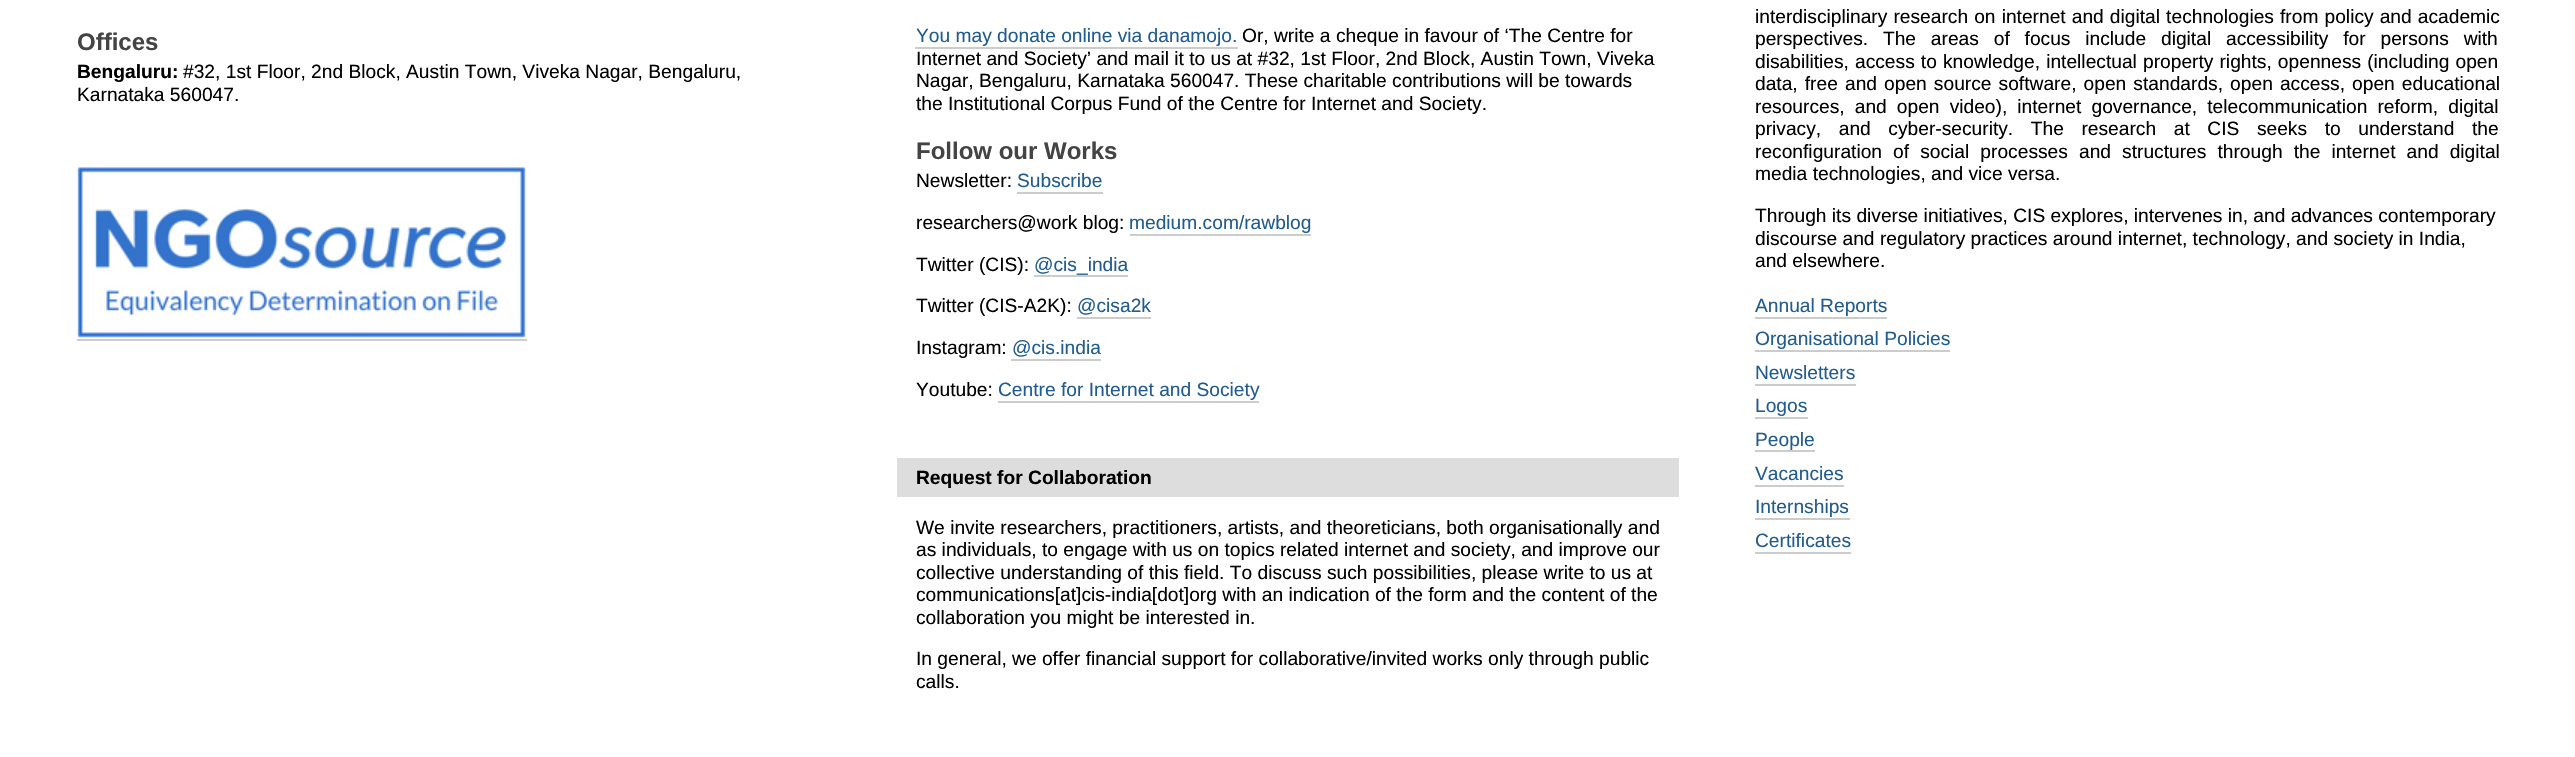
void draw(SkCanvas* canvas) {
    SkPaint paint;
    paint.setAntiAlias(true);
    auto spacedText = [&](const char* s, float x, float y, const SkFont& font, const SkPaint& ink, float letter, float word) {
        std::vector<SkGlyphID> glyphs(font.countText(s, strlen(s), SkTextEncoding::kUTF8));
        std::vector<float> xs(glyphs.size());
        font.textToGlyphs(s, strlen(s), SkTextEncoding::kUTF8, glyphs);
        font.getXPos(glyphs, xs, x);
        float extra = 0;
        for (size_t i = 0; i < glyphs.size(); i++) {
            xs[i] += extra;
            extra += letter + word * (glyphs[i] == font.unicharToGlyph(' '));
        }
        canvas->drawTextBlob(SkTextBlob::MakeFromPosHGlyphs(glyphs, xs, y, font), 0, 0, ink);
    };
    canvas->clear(0xFFFFFFFF);
    SkFont font1(fontMgr->matchFamilyStyle("Liberation Sans", SkFontStyle::Bold()), 24);
    font1.setSubpixel(true);
    paint.setColor(0xFF444444);
    canvas->drawString("Offices", 77, 50, font1, paint);
    SkFont font2(fontMgr->matchFamilyStyle("Liberation Sans", SkFontStyle::Bold()), 19.2f);
    font2.setSubpixel(true);
    paint.setColor(0xFF000000);
    canvas->drawString("Bengaluru:", 77, 78, font2, paint);
    SkFont font3(fontMgr->matchFamilyStyle("Liberation Sans", SkFontStyle::Normal()), 19.2f);
    font3.setSubpixel(true);
    canvas->drawString("#32, 1st Floor, 2nd Block, Austin Town, Viveka Nagar, Bengaluru,", 183, 78, font3, paint);
    canvas->drawString("Karnataka 560047.", 77, 101, font3, paint);
    canvas->drawImageRect(SkImages::DeferredFromEncodedData(SkData::MakeFromFileName("img1.png")), SkRect::MakeXYWH(77, 167, 449, 171), SkSamplingOptions());
    paint.setColor(0xFFCCCCCC);
    canvas->drawRect(SkRect::MakeXYWH(77, 339, 450, 2), paint);
    paint.setColor(0xFF205C90);
    canvas->drawString("You may donate online via danamojo.", 916, 42, font3, paint);
    paint.setColor(0xFFCCCCCC);
    canvas->drawRect(SkRect::MakeXYWH(915, 47, 323, 2), paint);
    paint.setColor(0xFF000000);
    canvas->drawString("Or, write a cheque in favour of ‘The Centre for", 1242, 42, font3, paint);
    canvas->drawString("Internet and Society’ and mail it to us at #32, 1st Floor, 2nd Block, Austin Town, Viveka", 916, 65, font3, paint);
    canvas->drawString("Nagar, Bengaluru, Karnataka 560047. These charitable contributions will be towards", 916, 87, font3, paint);
    canvas->drawString("the Institutional Corpus Fund of the Centre for Internet and Society.", 916, 110, font3, paint);
    paint.setColor(0xFF444444);
    canvas->drawString("Follow our Works", 916, 159, font1, paint);
    paint.setColor(0xFF000000);
    canvas->drawString("Newsletter:", 916, 187, font3, paint);
    paint.setColor(0xFF205C90);
    canvas->drawString("Subscribe", 1017, 187, font3, paint);
    paint.setColor(0xFFCCCCCC);
    canvas->drawRect(SkRect::MakeXYWH(1017, 192, 86, 2), paint);
    paint.setColor(0xFF000000);
    canvas->drawString("researchers@work blog:", 916, 229, font3, paint);
    paint.setColor(0xFF205C90);
    canvas->drawString("medium.com/rawblog", 1129, 229, font3, paint);
    paint.setColor(0xFFCCCCCC);
    canvas->drawRect(SkRect::MakeXYWH(1130, 234, 181, 2), paint);
    paint.setColor(0xFF000000);
    canvas->drawString("Twitter (CIS):", 916, 271, font3, paint);
    paint.setColor(0xFF205C90);
    canvas->drawString("@cis_india", 1034, 271, font3, paint);
    paint.setColor(0xFFCCCCCC);
    canvas->drawRect(SkRect::MakeXYWH(1034, 275, 94, 2), paint);
    paint.setColor(0xFF000000);
    canvas->drawString("Twitter (CIS-A2K):", 916, 312, font3, paint);
    paint.setColor(0xFF205C90);
    canvas->drawString("@cisa2k", 1077, 312, font3, paint);
    paint.setColor(0xFFCCCCCC);
    canvas->drawRect(SkRect::MakeXYWH(1077, 317, 74, 2), paint);
    paint.setColor(0xFF000000);
    canvas->drawString("Instagram:", 916, 354, font3, paint);
    paint.setColor(0xFF205C90);
    canvas->drawString("@cis.india", 1012, 354, font3, paint);
    paint.setColor(0xFFCCCCCC);
    canvas->drawRect(SkRect::MakeXYWH(1011, 359, 90, 2), paint);
    paint.setColor(0xFF000000);
    canvas->drawString("Youtube:", 916, 396, font3, paint);
    paint.setColor(0xFF205C90);
    canvas->drawString("Centre for Internet and Society", 998, 396, font3, paint);
    paint.setColor(0xFFCCCCCC);
    canvas->drawRect(SkRect::MakeXYWH(998, 401, 261, 2), paint);
    paint.setColor(0xFFDDDDDD);
    canvas->drawRect(SkRect::MakeXYWH(897, 458, 782, 39), paint);
    paint.setColor(0xFF000000);
    canvas->drawString("Request for Collaboration", 916, 484, font2, paint);
    canvas->drawString("We invite researchers, practitioners, artists, and theoreticians, both organisationally and", 916, 534, font3, paint);
    canvas->drawString("as individuals, to engage with us on topics related internet and society, and improve our", 916, 556, font3, paint);
    canvas->drawString("collective understanding of this field. To discuss such possibilities, please write to us at", 916, 579, font3, paint);
    canvas->drawString("communications[at]cis-india[dot]org with an indication of the form and the content of the", 916, 601, font3, paint);
    canvas->drawString("collaboration you might be interested in.", 916, 624, font3, paint);
    canvas->drawString("In general, we offer financial support for collaborative/invited works only through public", 916, 665, font3, paint);
    canvas->drawString("calls.", 916, 688, font3, paint);
    spacedText("interdisciplinary research on internet and digital technologies from policy and academic", 1755, 23, font3, paint, 0, 0.75f);
    spacedText("perspectives. The areas of focus include digital accessibility for persons with", 1755, 45, font3, paint, 0, 9.5f);
    spacedText("disabilities, access to knowledge, intellectual property rights, openness (including open", 1755, 68, font3, paint, 0, 0.75f);
    spacedText("data, free and open source software, open standards, open access, open educational", 1755, 90, font3, paint, 0, 1.75f);
    spacedText("resources, and open video), internet governance, telecommunication reform, digital", 1755, 113, font3, paint, 0, 4.75f);
    spacedText("privacy, and cyber-security. The research at CIS seeks to understand the", 1755, 135, font3, paint, 0, 12.25f);
    spacedText("reconfiguration of social processes and structures through the internet and digital", 1755, 158, font3, paint, 0, 5.75f);
    canvas->drawString("media technologies, and vice versa.", 1755, 180, font3, paint);
    canvas->drawString("Through its diverse initiatives, CIS explores, intervenes in, and advances contemporary", 1755, 222, font3, paint);
    canvas->drawString("discourse and regulatory practices around internet, technology, and society in India,", 1755, 245, font3, paint);
    canvas->drawString("and elsewhere.", 1755, 267, font3, paint);
    paint.setColor(0xFF205C90);
    canvas->drawString("Annual Reports", 1755, 312, font3, paint);
    paint.setColor(0xFFCCCCCC);
    canvas->drawRect(SkRect::MakeXYWH(1755, 317, 132, 2), paint);
    paint.setColor(0xFF205C90);
    canvas->drawString("Organisational Policies", 1755, 345, font3, paint);
    paint.setColor(0xFFCCCCCC);
    canvas->drawRect(SkRect::MakeXYWH(1755, 350, 195, 2), paint);
    paint.setColor(0xFF205C90);
    canvas->drawString("Newsletters", 1755, 379, font3, paint);
    paint.setColor(0xFFCCCCCC);
    canvas->drawRect(SkRect::MakeXYWH(1755, 384, 101, 2), paint);
    paint.setColor(0xFF205C90);
    canvas->drawString("Logos", 1755, 412, font3, paint);
    paint.setColor(0xFFCCCCCC);
    canvas->drawRect(SkRect::MakeXYWH(1755, 417, 53, 2), paint);
    paint.setColor(0xFF205C90);
    canvas->drawString("People", 1755, 446, font3, paint);
    paint.setColor(0xFFCCCCCC);
    canvas->drawRect(SkRect::MakeXYWH(1755, 450, 60, 2), paint);
    paint.setColor(0xFF205C90);
    canvas->drawString("Vacancies", 1755, 480, font3, paint);
    paint.setColor(0xFFCCCCCC);
    canvas->drawRect(SkRect::MakeXYWH(1755, 485, 89, 2), paint);
    paint.setColor(0xFF205C90);
    canvas->drawString("Internships", 1755, 513, font3, paint);
    paint.setColor(0xFFCCCCCC);
    canvas->drawRect(SkRect::MakeXYWH(1755, 518, 95, 2), paint);
    paint.setColor(0xFF205C90);
    canvas->drawString("Certificates", 1755, 547, font3, paint);
    paint.setColor(0xFFCCCCCC);
    canvas->drawRect(SkRect::MakeXYWH(1755, 552, 96, 2), paint);
}
